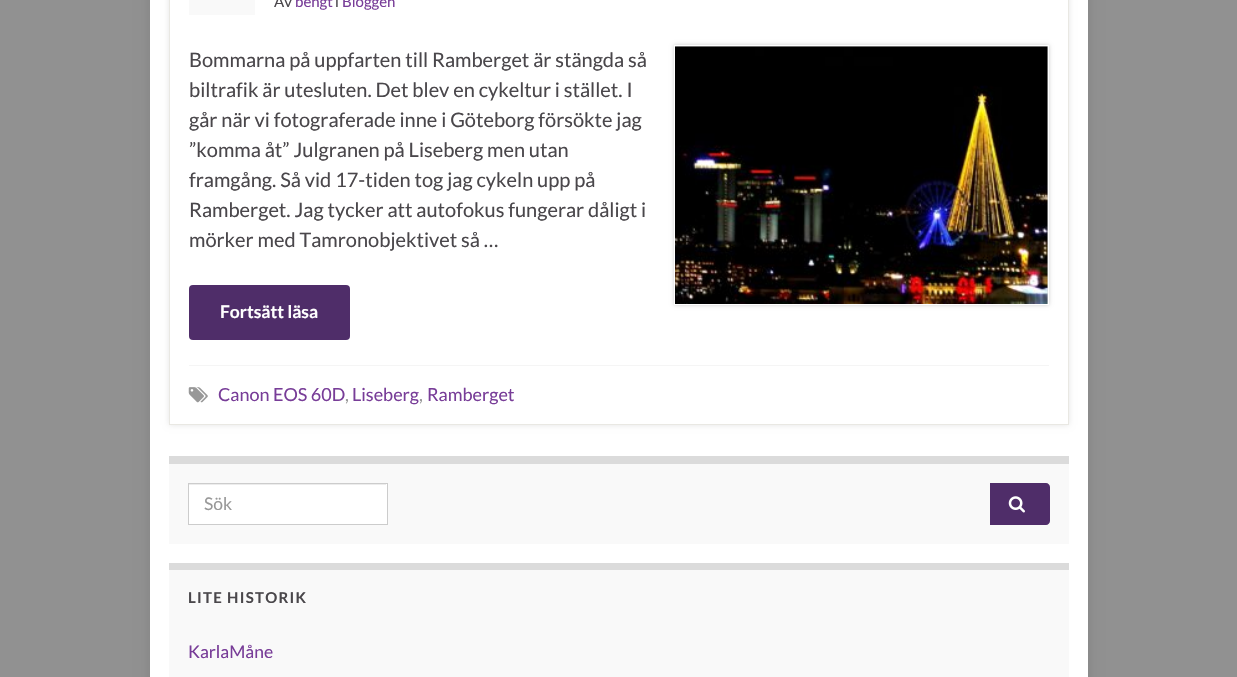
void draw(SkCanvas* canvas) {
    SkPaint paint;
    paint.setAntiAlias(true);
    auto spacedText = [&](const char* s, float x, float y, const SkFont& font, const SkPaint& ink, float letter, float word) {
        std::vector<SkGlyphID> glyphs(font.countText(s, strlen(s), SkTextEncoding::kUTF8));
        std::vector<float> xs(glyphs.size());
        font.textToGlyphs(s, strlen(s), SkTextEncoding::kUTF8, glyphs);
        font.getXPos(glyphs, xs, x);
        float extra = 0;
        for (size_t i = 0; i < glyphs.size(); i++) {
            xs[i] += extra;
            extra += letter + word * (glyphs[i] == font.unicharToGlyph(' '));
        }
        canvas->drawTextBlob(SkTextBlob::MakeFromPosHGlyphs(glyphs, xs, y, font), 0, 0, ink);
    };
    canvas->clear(0xFF919191);
    paint.setColor(0x1A000000);
    paint.setMaskFilter(SkMaskFilter::MakeBlur(kNormal_SkBlurStyle, 6));
    canvas->drawRect(SkRect::MakeXYWH(150, -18, 938, 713), paint);
    paint.setMaskFilter(nullptr);
    paint.setColor(0xFFFFFFFF);
    canvas->drawRect(SkRect::MakeXYWH(150, 0, 938, 677), paint);
    paint.setColor(0x1A000000);
    paint.setMaskFilter(SkMaskFilter::MakeBlur(kNormal_SkBlurStyle, 3));
    canvas->drawRect(SkRect::MakeXYWH(169, -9, 900, 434), paint);
    paint.setMaskFilter(nullptr);
    paint.setColor(0xFFFFFFFF);
    canvas->drawRect(SkRect::MakeXYWH(169.5f, -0.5f, 899, 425), paint);
    paint.setStyle(SkPaint::kStroke_Style);
    paint.setStrokeWidth(1);
    paint.setColor(0xFFE9E8E3);
    canvas->drawRect(SkRect::MakeXYWH(169.5f, -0.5f, 899, 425), paint);
    paint.setStyle(SkPaint::kFill_Style);
    paint.setColor(0xFFF9F9F9);
    canvas->drawRect(SkRect::MakeXYWH(189, 0, 66, 15), paint);
    SkFont font1(fontMgr->matchFamilyStyle("Lato", SkFontStyle::Normal()), 15);
    font1.setSubpixel(true);
    paint.setColor(0xFF4A474B);
    canvas->drawString("Av", 274, 7, font1, paint);
    paint.setColor(0xFF783D98);
    canvas->drawString("bengt", 295, 7, font1, paint);
    paint.setColor(0xFF4A474B);
    canvas->drawString("i", 335, 7, font1, paint);
    paint.setColor(0xFF783D98);
    canvas->drawString("Bloggen", 342, 7, font1, paint);
    SkFont font2(fontMgr->matchFamilyStyle("Lato", SkFontStyle::Normal()), 20);
    font2.setSubpixel(true);
    paint.setColor(0xFF4A474B);
    canvas->drawString("Bommarna på uppfarten till Ramberget är stängda så", 189, 67, font2, paint);
    canvas->drawString("biltrafik är utesluten. Det blev en cykeltur i stället. I", 189, 97, font2, paint);
    canvas->drawString("går när vi fotograferade inne i Göteborg försökte jag", 189, 127, font2, paint);
    canvas->drawString("”komma åt” Julgranen på Liseberg men utan", 189, 157, font2, paint);
    canvas->drawString("framgång. Så vid 17-tiden tog jag cykeln upp på", 189, 187, font2, paint);
    canvas->drawString("Ramberget. Jag tycker att autofokus fungerar dåligt i", 189, 217, font2, paint);
    canvas->drawString("mörker med Tamronobjektivet så …", 189, 247, font2, paint);
    paint.setColor(0x33000000);
    paint.setMaskFilter(SkMaskFilter::MakeBlur(kNormal_SkBlurStyle, 2));
    canvas->drawRect(SkRect::MakeXYWH(674, 45, 375, 260), paint);
    paint.setMaskFilter(nullptr);
    paint.setStyle(SkPaint::kStroke_Style);
    paint.setColor(0xFFFFFFFF);
    canvas->drawRect(SkRect::MakeXYWH(674.5f, 45.5f, 374, 259), paint);
    canvas->drawImageRect(SkImages::DeferredFromEncodedData(SkData::MakeFromFileName("img1.png")), SkRect::MakeXYWH(675, 46, 373, 258), SkSamplingOptions());
    paint.setStyle(SkPaint::kFill_Style);
    paint.setColor(0xFF4F2D69);
    canvas->drawRoundRect(SkRect::MakeXYWH(189, 285, 161, 55), 4, 4, paint);
    SkFont font3(fontMgr->matchFamilyStyle("Lato", SkFontStyle::Bold()), 17.5f);
    font3.setSubpixel(true);
    paint.setColor(0xFFFFFFFF);
    canvas->drawString("Fortsätt läsa", 220, 318, font3, paint);
    paint.setColor(0xFFF5F5F5);
    canvas->drawRect(SkRect::MakeXYWH(189, 365, 860, 1), paint);
    canvas->drawImageRect(SkImages::DeferredFromEncodedData(SkData::MakeFromFileName("img2.png")), SkRect::MakeXYWH(188, 387, 20, 16), SkSamplingOptions());
    SkFont font4(fontMgr->matchFamilyStyle("Lato", SkFontStyle::Normal()), 18);
    font4.setSubpixel(true);
    paint.setColor(0xFF783D98);
    canvas->drawString("Canon EOS 60D", 218, 401, font4, paint);
    paint.setColor(0xFF989898);
    canvas->drawString(",", 345, 401, font4, paint);
    paint.setColor(0xFF783D98);
    canvas->drawString("Liseberg", 352, 401, font4, paint);
    paint.setColor(0xFF989898);
    canvas->drawString(",", 419, 401, font4, paint);
    paint.setColor(0xFF783D98);
    canvas->drawString("Ramberget", 427, 401, font4, paint);
    paint.setColor(0xFFF9F9F9);
    canvas->drawRect(SkRect::MakeXYWH(169, 464, 900, 80), paint);
    paint.setColor(0xFFDBDBDB);
    canvas->drawRect(SkRect::MakeXYWH(169, 456, 900, 8), paint);
    paint.setColor(0xFFFFFFFF);
    canvas->drawRect(SkRect::MakeXYWH(189, 484, 198, 40), paint);
    paint.setColor(0xFFECECEC);
    canvas->drawRect(SkRect::MakeXYWH(189, 484, 197, 1), paint);
    paint.setStyle(SkPaint::kStroke_Style);
    paint.setColor(0xFFCCCCCC);
    canvas->drawRect(SkRect::MakeXYWH(188.5f, 483.5f, 199, 41), paint);
    SkFont font5(fontMgr->matchFamilyStyle("Lato", SkFontStyle::Normal()), 17.5f);
    font5.setSubpixel(true);
    paint.setStyle(SkPaint::kFill_Style);
    paint.setColor(0xFF989898);
    canvas->drawString("Sök", 204, 510, font5, paint);
    paint.setColor(0xFF4F2D69);
    canvas->drawPath(SkPathBuilder().moveTo(990, 483).lineTo(1046, 483).cubicTo(1048, 483, 1050, 485, 1050, 487).lineTo(1050, 521).cubicTo(1050, 523, 1048, 525, 1046, 525).lineTo(990, 525).close().detach(), paint);
    canvas->drawImageRect(SkImages::DeferredFromEncodedData(SkData::MakeFromFileName("img3.png")), SkRect::MakeXYWH(1008, 496, 17, 17), SkSamplingOptions());
    paint.setColor(0xFFF9F9F9);
    canvas->drawRect(SkRect::MakeXYWH(169, 570, 900, 107), paint);
    paint.setColor(0xFFDBDBDB);
    canvas->drawRect(SkRect::MakeXYWH(169, 563, 900, 7), paint);
    SkFont font6(fontMgr->matchFamilyStyle("Lato", SkFontStyle::Bold()), 15);
    font6.setSubpixel(true);
    paint.setColor(0xFF4A474B);
    spacedText("LITE HISTORIK", 188, 603, font6, paint, 1.25f, 0);
    paint.setColor(0xFF783D98);
    canvas->drawString("KarlaMåne", 188, 658, font5, paint);
}
